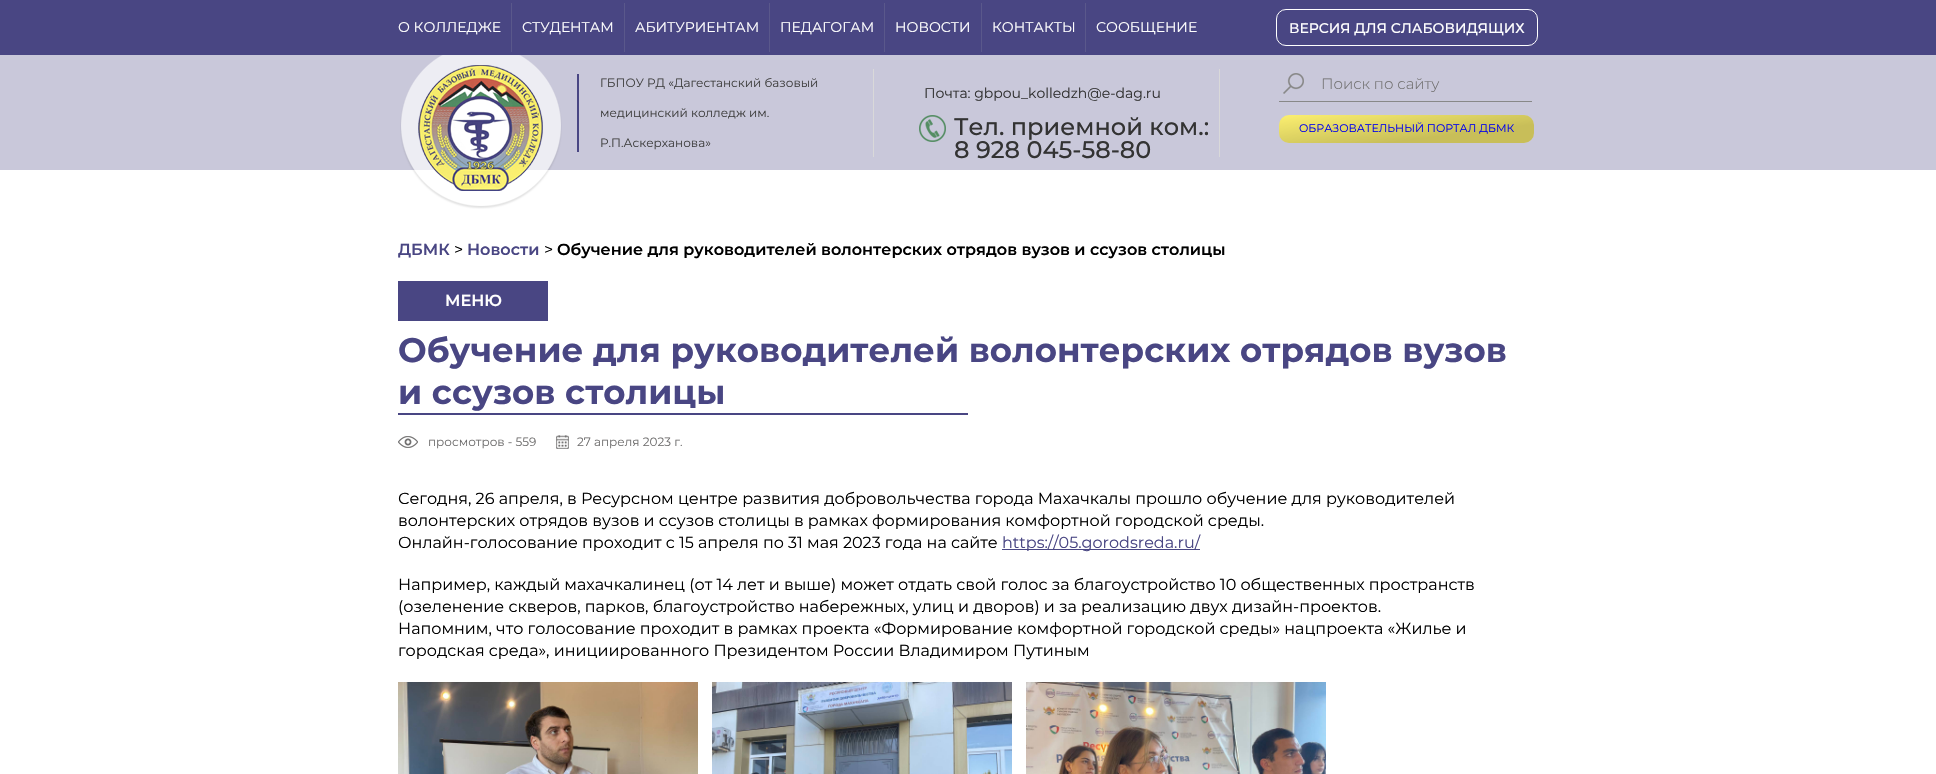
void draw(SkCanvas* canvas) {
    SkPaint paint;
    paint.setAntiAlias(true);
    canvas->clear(0xFFFFFFFF);
    paint.setColor(0xFF494683);
    canvas->drawRect(SkRect::MakeXYWH(0, 0, 1936, 55), paint);
    SkFont font1(fontMgr->matchFamilyStyle("Montserrat", SkFontStyle::Normal()), 14);
    font1.setSubpixel(true);
    paint.setColor(0xFFFFFFFF);
    canvas->drawString("О КОЛЛЕДЖЕ", 398, 32, font1, paint);
    paint.setColor(0xFF5A588B);
    canvas->drawRect(SkRect::MakeXYWH(511, 3, 1, 49), paint);
    paint.setColor(0xFFFFFFFF);
    canvas->drawString("СТУДЕНТАМ", 522, 32, font1, paint);
    paint.setColor(0xFF5A588B);
    canvas->drawRect(SkRect::MakeXYWH(624, 3, 1, 49), paint);
    paint.setColor(0xFFFFFFFF);
    canvas->drawString("АБИТУРИЕНТАМ", 635, 32, font1, paint);
    paint.setColor(0xFF5A588B);
    canvas->drawRect(SkRect::MakeXYWH(769, 3, 1, 49), paint);
    paint.setColor(0xFFFFFFFF);
    canvas->drawString("ПЕДАГОГАМ", 780, 32, font1, paint);
    paint.setColor(0xFF5A588B);
    canvas->drawRect(SkRect::MakeXYWH(884, 3, 1, 49), paint);
    paint.setColor(0xFFFFFFFF);
    canvas->drawString("НОВОСТИ", 895, 32, font1, paint);
    paint.setColor(0xFF5A588B);
    canvas->drawRect(SkRect::MakeXYWH(981, 3, 1, 49), paint);
    paint.setColor(0xFFFFFFFF);
    canvas->drawString("КОНТАКТЫ", 992, 32, font1, paint);
    paint.setColor(0xFF5A588B);
    canvas->drawRect(SkRect::MakeXYWH(1085, 3, 1, 49), paint);
    paint.setColor(0xFFFFFFFF);
    canvas->drawString("СООБЩЕНИЕ", 1096, 32, font1, paint);
    paint.setStyle(SkPaint::kStroke_Style);
    paint.setStrokeWidth(1);
    canvas->drawRoundRect(SkRect::MakeXYWH(1276.5f, 9.5f, 261, 36), 9.5f, 9.5f, paint);
    SkFont font2(fontMgr->matchFamilyStyle("Montserrat", SkFontStyle(500, SkFontStyle::kNormal_Width, SkFontStyle::kUpright_Slant)), 14);
    font2.setSubpixel(true);
    paint.setStyle(SkPaint::kFill_Style);
    canvas->drawString("ВЕРСИЯ ДЛЯ СЛАБОВИДЯЩИХ", 1289, 33, font2, paint);
    paint.setColor(0xFFC9C8DA);
    canvas->drawRect(SkRect::MakeXYWH(0, 55, 1936, 115), paint);
    canvas->drawImageRect(SkImages::DeferredFromEncodedData(SkData::MakeFromFileName("img1.png")), SkRect::MakeXYWH(400, 55, 162, 154), SkSamplingOptions());
    paint.setColor(0xFF494683);
    canvas->drawRect(SkRect::MakeXYWH(577, 74, 2, 78), paint);
    SkFont font3(fontMgr->matchFamilyStyle("Montserrat", SkFontStyle::Normal()), 12);
    font3.setSubpixel(true);
    paint.setColor(0xFF414141);
    canvas->drawString("ГБПОУ РД «Дагестанский базовый", 600, 87, font3, paint);
    canvas->drawString("медицинский колледж им.", 600, 117, font3, paint);
    canvas->drawString("Р.П.Аскерханова»", 600, 147, font3, paint);
    paint.setColor(0xFFD9D9D9);
    canvas->drawRect(SkRect::MakeXYWH(873, 69, 1, 88), paint);
    paint.setColor(0xFF333333);
    canvas->drawString("Почта: gbpou_kolledzh@e-dag.ru", 924, 98, font1, paint);
    canvas->drawImageRect(SkImages::DeferredFromEncodedData(SkData::MakeFromFileName("img2.png")), SkRect::MakeXYWH(919, 115, 27, 27), SkSamplingOptions());
    SkFont font4(fontMgr->matchFamilyStyle("Montserrat", SkFontStyle(500, SkFontStyle::kNormal_Width, SkFontStyle::kUpright_Slant)), 24);
    font4.setSubpixel(true);
    canvas->drawString("Тел. приемной ком.:", 954, 135, font4, paint);
    canvas->drawString("8 928 045-58-80", 954, 158, font4, paint);
    paint.setColor(0xFFD9D9D9);
    canvas->drawRect(SkRect::MakeXYWH(1219, 69, 1, 88), paint);
    paint.setColor(0xFF888888);
    canvas->drawRect(SkRect::MakeXYWH(1279, 101, 253, 1), paint);
    canvas->drawImageRect(SkImages::DeferredFromEncodedData(SkData::MakeFromFileName("img3.png")), SkRect::MakeXYWH(1283, 73, 21, 21), SkSamplingOptions());
    SkFont font5(fontMgr->matchFamilyStyle("Montserrat", SkFontStyle(300, SkFontStyle::kNormal_Width, SkFontStyle::kUpright_Slant)), 15);
    font5.setSubpixel(true);
    paint.setColor(0xFF717070);
    canvas->drawString("Поиск по сайту", 1321, 89, font5, paint);
    paint.setColor(0xFFFAEE6F);
    canvas->drawRoundRect(SkRect::MakeXYWH(1279, 115, 255, 28), 10, 10, paint);
    {
        const SkColor colors[] = {0x33000000, 0x33000000, 0x00000000};
        const float stops[] = {0, 0.3f, 1};
        const SkPoint ends[] = {{1410, 157}, {1403, 101}};
        paint.setShader(SkGradientShader::MakeLinear(ends, colors, stops, 3, SkTileMode::kClamp));
        paint.setAlpha(255);
    }
    canvas->drawRoundRect(SkRect::MakeXYWH(1279, 115, 255, 28), 10, 10, paint);
    SkFont font6(fontMgr->matchFamilyStyle("Montserrat", SkFontStyle::Normal()), 11);
    font6.setSubpixel(true);
    paint.setShader(nullptr);
    paint.setColor(0xFF0000EE);
    canvas->drawString("ОБРАЗОВАТЕЛЬНЫЙ ПОРТАЛ ДБМК", 1299, 132, font6, paint);
    SkFont font7(fontMgr->matchFamilyStyle("Montserrat", SkFontStyle(600, SkFontStyle::kNormal_Width, SkFontStyle::kUpright_Slant)), 16);
    font7.setSubpixel(true);
    paint.setColor(0xFF494683);
    canvas->drawString("ДБМК", 398, 255, font7, paint);
    SkFont font8(fontMgr->matchFamilyStyle("Montserrat", SkFontStyle::Normal()), 16);
    font8.setSubpixel(true);
    paint.setColor(0xFF000000);
    canvas->drawString(">", 454, 255, font8, paint);
    paint.setColor(0xFF494683);
    canvas->drawString("Новости", 467, 255, font7, paint);
    paint.setColor(0xFF000000);
    canvas->drawString(">", 544, 255, font8, paint);
    canvas->drawString("Обучение для руководителей волонтерских отрядов вузов и ссузов столицы", 557, 255, font7, paint);
    paint.setColor(0xFF494683);
    canvas->drawRect(SkRect::MakeXYWH(398, 281, 150, 40), paint);
    paint.setColor(0xFFFFFFFF);
    canvas->drawString("МЕНЮ", 445, 306, font7, paint);
    SkFont font9(fontMgr->matchFamilyStyle("Montserrat", SkFontStyle::Bold()), 34);
    font9.setSubpixel(true);
    paint.setColor(0xFF494683);
    canvas->drawString("Обучение для руководителей волонтерских отрядов вузов", 398, 362, font9, paint);
    canvas->drawString("и ссузов столицы", 398, 404, font9, paint);
    canvas->drawRect(SkRect::MakeXYWH(398, 413, 570, 2), paint);
    canvas->drawImageRect(SkImages::DeferredFromEncodedData(SkData::MakeFromFileName("img4.png")), SkRect::MakeXYWH(398, 436, 20, 12), SkSamplingOptions());
    paint.setColor(0xFF717070);
    canvas->drawString("просмотров - 559", 428, 446, font3, paint);
    canvas->drawImageRect(SkImages::DeferredFromEncodedData(SkData::MakeFromFileName("img5.png")), SkRect::MakeXYWH(556, 435, 13, 14), SkSamplingOptions());
    canvas->drawString("27 апреля 2023 г.", 577, 446, font3, paint);
    paint.setColor(0xFF000000);
    canvas->drawString("Сегодня, 26 апреля, в Ресурсном центре развития добровольчества города Махачкалы прошло обучение для руководителей", 398, 504, font8, paint);
    canvas->drawString("волонтерских отрядов вузов и ссузов столицы в рамках формирования комфортной городской среды.", 398, 526, font8, paint);
    canvas->drawString("Онлайн-голосование проходит с 15 апреля по 31 мая 2023 года на сайте", 398, 548, font8, paint);
    paint.setColor(0xFF494683);
    canvas->drawRect(SkRect::MakeXYWH(1002, 549, 198, 1), paint);
    canvas->drawString("https://05.gorodsreda.ru/", 1002, 548, font8, paint);
    paint.setColor(0xFF000000);
    canvas->drawString("Например, каждый махачкалинец (от 14 лет и выше) может отдать свой голос за благоустройство 10 общественных пространств", 398, 590, font8, paint);
    canvas->drawString("(озеленение скверов, парков, благоустройство набережных, улиц и дворов) и за реализацию двух дизайн-проектов.", 398, 612, font8, paint);
    canvas->drawString("Напомним, что голосование проходит в рамках проекта «Формирование комфортной городской среды» нацпроекта «Жилье и", 398, 634, font8, paint);
    canvas->drawString("городская среда», инициированного Президентом России Владимиром Путиным", 398, 656, font8, paint);
    canvas->drawImageRect(SkImages::DeferredFromEncodedData(SkData::MakeFromFileName("img6.png")), SkRect::MakeXYWH(398, 682, 300, 92), SkSamplingOptions());
    canvas->drawImageRect(SkImages::DeferredFromEncodedData(SkData::MakeFromFileName("img7.png")), SkRect::MakeXYWH(712, 682, 300, 92), SkSamplingOptions());
    canvas->drawImageRect(SkImages::DeferredFromEncodedData(SkData::MakeFromFileName("img8.png")), SkRect::MakeXYWH(1026, 682, 300, 92), SkSamplingOptions());
}
